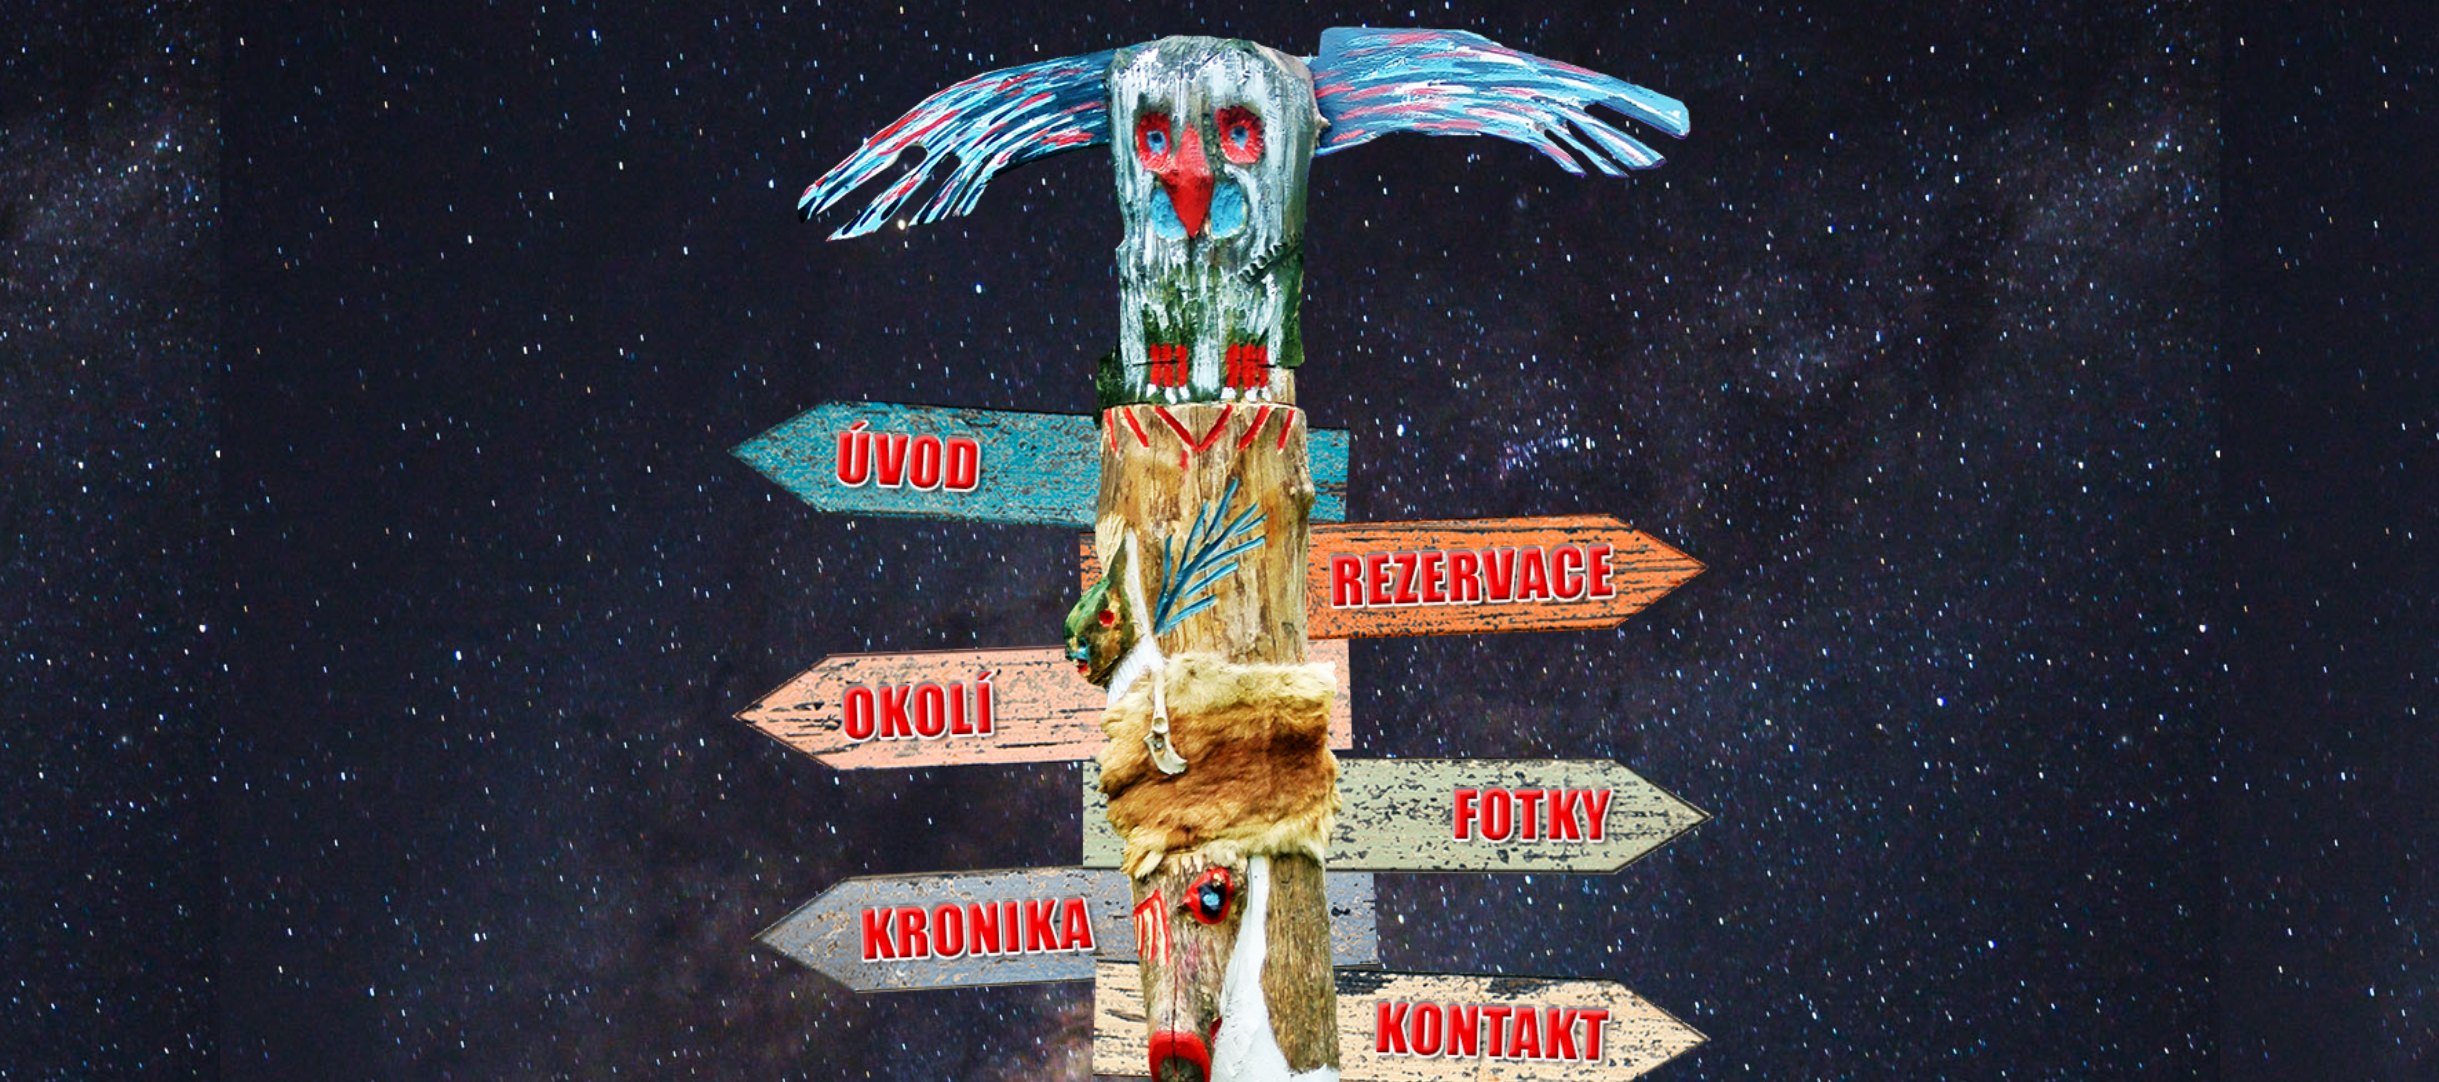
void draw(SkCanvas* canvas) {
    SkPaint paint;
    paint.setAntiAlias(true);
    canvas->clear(0xFFFFFFFF);
    canvas->drawImageRect(SkImages::DeferredFromEncodedData(SkData::MakeFromFileName("img1.png")), SkRect::MakeXYWH(0, 0, 2439, 1082), SkSamplingOptions());
    canvas->drawImageRect(SkImages::DeferredFromEncodedData(SkData::MakeFromFileName("img2.png")), SkRect::MakeXYWH(726, 26, 988, 1056), SkSamplingOptions());
}
